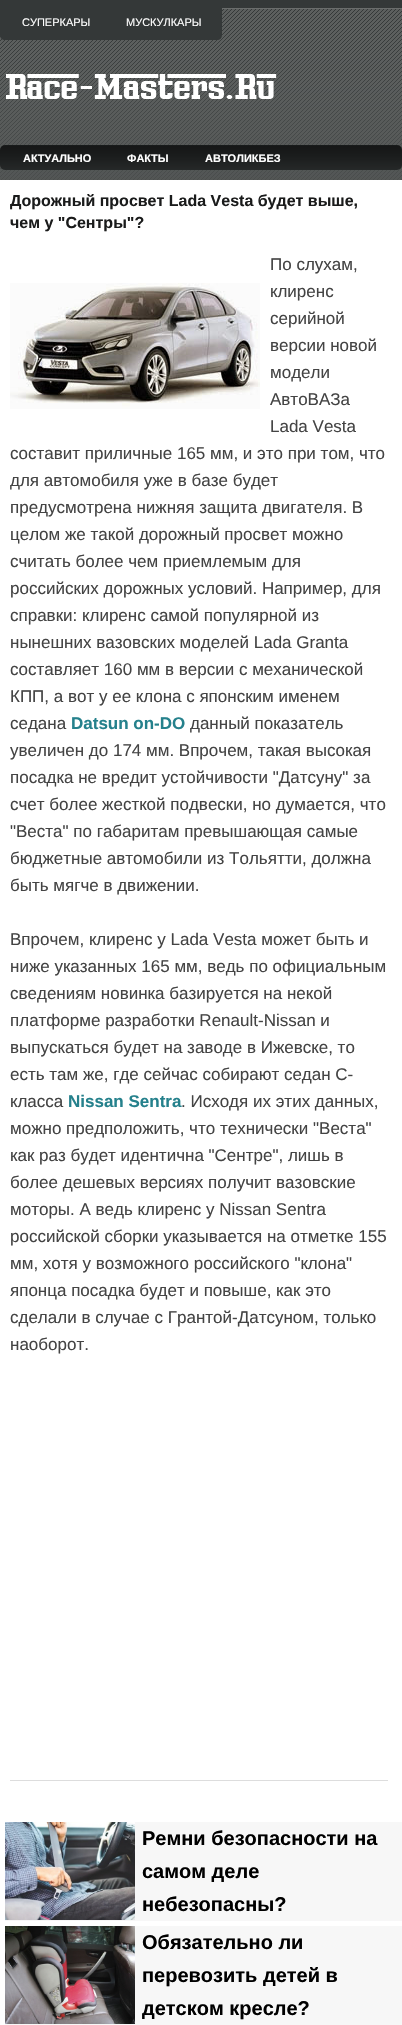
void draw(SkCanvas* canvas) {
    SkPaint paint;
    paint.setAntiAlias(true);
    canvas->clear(0xFFFFFFFF);
    canvas->drawImageRect(SkImages::DeferredFromEncodedData(SkData::MakeFromFileName("img1.png")), SkRect::MakeXYWH(0, 0, 402, 180), SkSamplingOptions());
    paint.setColor(0xFF343838);
    canvas->drawPath(SkPathBuilder().moveTo(0, 0).lineTo(222, 0).lineTo(222, 35).cubicTo(222, 38, 220, 40, 217, 40).lineTo(5, 40).cubicTo(2, 40, 0, 38, 0, 35).close().detach(), paint);
    SkFont font1(fontMgr->matchFamilyStyle("Liberation Sans", SkFontStyle::Normal()), 11);
    font1.setSubpixel(true);
    paint.setColor(0xFFFFFFFF);
    canvas->drawString("СУПЕРКАРЫ", 22, 26, font1, paint);
    canvas->drawString("МУСКУЛКАРЫ", 126, 26, font1, paint);
    canvas->drawImageRect(SkImages::DeferredFromEncodedData(SkData::MakeFromFileName("img2.png")), SkRect::MakeXYWH(6, 74, 271, 25), SkSamplingOptions());
    canvas->drawImageRect(SkImages::DeferredFromEncodedData(SkData::MakeFromFileName("img3.png")), SkRect::MakeXYWH(0, 145, 402, 25), SkSamplingOptions());
    SkFont font2(fontMgr->matchFamilyStyle("Liberation Sans", SkFontStyle::Bold()), 11);
    font2.setSubpixel(true);
    canvas->drawString("АКТУАЛЬНО", 23, 162, font2, paint);
    canvas->drawString("ФАКТЫ", 127, 162, font2, paint);
    canvas->drawString("АВТОЛИКБЕЗ", 205, 162, font2, paint);
    paint.setColor(0xFFDDDDDD);
    canvas->drawRect(SkRect::MakeXYWH(10, 1780, 378, 1), paint);
    SkFont font3(fontMgr->matchFamilyStyle("Liberation Sans", SkFontStyle::Bold()), 16);
    font3.setSubpixel(true);
    paint.setColor(0xFF1A1B1B);
    canvas->drawString("Дорожный просвет Lada Vesta будет выше,", 10, 206, font3, paint);
    canvas->drawString("чем у \"Сентры\"?", 10, 228, font3, paint);
    SkFont font4(fontMgr->matchFamilyStyle("Liberation Sans", SkFontStyle::Normal()), 17);
    font4.setSubpixel(true);
    paint.setColor(0xFF444444);
    canvas->drawString("По слухам,", 270, 270, font4, paint);
    canvas->drawImageRect(SkImages::DeferredFromEncodedData(SkData::MakeFromFileName("img4.png")), SkRect::MakeXYWH(10, 283, 250, 126), SkSamplingOptions());
    canvas->drawString("клиренс", 270, 297, font4, paint);
    canvas->drawString("серийной", 270, 324, font4, paint);
    canvas->drawString("версии новой", 270, 351, font4, paint);
    canvas->drawString("модели", 270, 378, font4, paint);
    canvas->drawString("АвтоВАЗа", 270, 405, font4, paint);
    canvas->drawString("Lada Vesta", 270, 432, font4, paint);
    canvas->drawString("составит приличные 165 мм, и это при том, что", 10, 459, font4, paint);
    canvas->drawString("для автомобиля уже в базе будет", 10, 486, font4, paint);
    canvas->drawString("предусмотрена нижняя защита двигателя. В", 10, 513, font4, paint);
    canvas->drawString("целом же такой дорожный просвет можно", 10, 540, font4, paint);
    canvas->drawString("считать более чем приемлемым для", 10, 567, font4, paint);
    canvas->drawString("российских дорожных условий. Например, для", 10, 594, font4, paint);
    canvas->drawString("справки: клиренс самой популярной из", 10, 621, font4, paint);
    canvas->drawString("нынешних вазовских моделей Lada Granta", 10, 648, font4, paint);
    canvas->drawString("составляет 160 мм в версии с механической", 10, 675, font4, paint);
    canvas->drawString("КПП, а вот у ее клона с японским именем", 10, 702, font4, paint);
    canvas->drawString("седана", 10, 729, font4, paint);
    SkFont font5(fontMgr->matchFamilyStyle("Liberation Sans", SkFontStyle::Bold()), 17);
    font5.setSubpixel(true);
    paint.setColor(0xFF25818C);
    canvas->drawString("Datsun on-DO", 71, 729, font5, paint);
    paint.setColor(0xFF444444);
    canvas->drawString("данный показатель", 190, 729, font4, paint);
    canvas->drawString("увеличен до 174 мм. Впрочем, такая высокая", 10, 756, font4, paint);
    canvas->drawString("посадка не вредит устойчивости \"Датсуну\" за", 10, 783, font4, paint);
    canvas->drawString("счет более жесткой подвески, но думается, что", 10, 810, font4, paint);
    canvas->drawString("\"Веста\" по габаритам превышающая самые", 10, 837, font4, paint);
    canvas->drawString("бюджетные автомобили из Тольятти, должна", 10, 864, font4, paint);
    canvas->drawString("быть мягче в движении.", 10, 891, font4, paint);
    canvas->drawString("Впрочем, клиренс у Lada Vesta может быть и", 10, 945, font4, paint);
    canvas->drawString("ниже указанных 165 мм, ведь по официальным", 10, 972, font4, paint);
    canvas->drawString("сведениям новинка базируется на некой", 10, 999, font4, paint);
    canvas->drawString("платформе разработки Renault-Nissan и", 10, 1026, font4, paint);
    canvas->drawString("выпускаться будет на заводе в Ижевске, то", 10, 1053, font4, paint);
    canvas->drawString("есть там же, где сейчас собирают седан C-", 10, 1080, font4, paint);
    canvas->drawString("класса", 10, 1107, font4, paint);
    paint.setColor(0xFF25818C);
    canvas->drawString("Nissan Sentra", 68, 1107, font5, paint);
    paint.setColor(0xFF444444);
    canvas->drawString(". Исходя их этих данных,", 181, 1107, font4, paint);
    canvas->drawString("можно предположить, что технически \"Веста\"", 10, 1134, font4, paint);
    canvas->drawString("как раз будет идентична \"Сентре\", лишь в", 10, 1161, font4, paint);
    canvas->drawString("более дешевых версиях получит вазовские", 10, 1188, font4, paint);
    canvas->drawString("моторы. А ведь клиренс у Nissan Sentra", 10, 1215, font4, paint);
    canvas->drawString("российской сборки указывается на отметке 155", 10, 1242, font4, paint);
    canvas->drawString("мм, хотя у возможного российского \"клона\"", 10, 1269, font4, paint);
    canvas->drawString("японца посадка будет и повыше, как это", 10, 1296, font4, paint);
    canvas->drawString("сделали в случае с Грантой-Датсуном, только", 10, 1323, font4, paint);
    canvas->drawString("наоборот.", 10, 1350, font4, paint);
    paint.setColor(0xFFF7F7F7);
    canvas->drawRect(SkRect::MakeXYWH(5, 1822, 397, 99), paint);
    canvas->drawImageRect(SkImages::DeferredFromEncodedData(SkData::MakeFromFileName("img5.png")), SkRect::MakeXYWH(5, 1822, 130, 98), SkSamplingOptions());
    SkFont font6(fontMgr->matchFamilyStyle("Liberation Sans", SkFontStyle::Bold()), 20);
    font6.setSubpixel(true);
    paint.setColor(0xFF000000);
    canvas->drawString("Ремни безопасности на", 142, 1845, font6, paint);
    canvas->drawString("самом деле", 142, 1878, font6, paint);
    canvas->drawString("небезопасны?", 142, 1911, font6, paint);
    paint.setColor(0xFFF7F7F7);
    canvas->drawRect(SkRect::MakeXYWH(5, 1926, 397, 99), paint);
    canvas->drawImageRect(SkImages::DeferredFromEncodedData(SkData::MakeFromFileName("img6.png")), SkRect::MakeXYWH(5, 1926, 130, 98), SkSamplingOptions());
    paint.setColor(0xFF000000);
    canvas->drawString("Обязательно ли", 142, 1949, font6, paint);
    canvas->drawString("перевозить детей в", 142, 1982, font6, paint);
    canvas->drawString("детском кресле?", 142, 2015, font6, paint);
}
